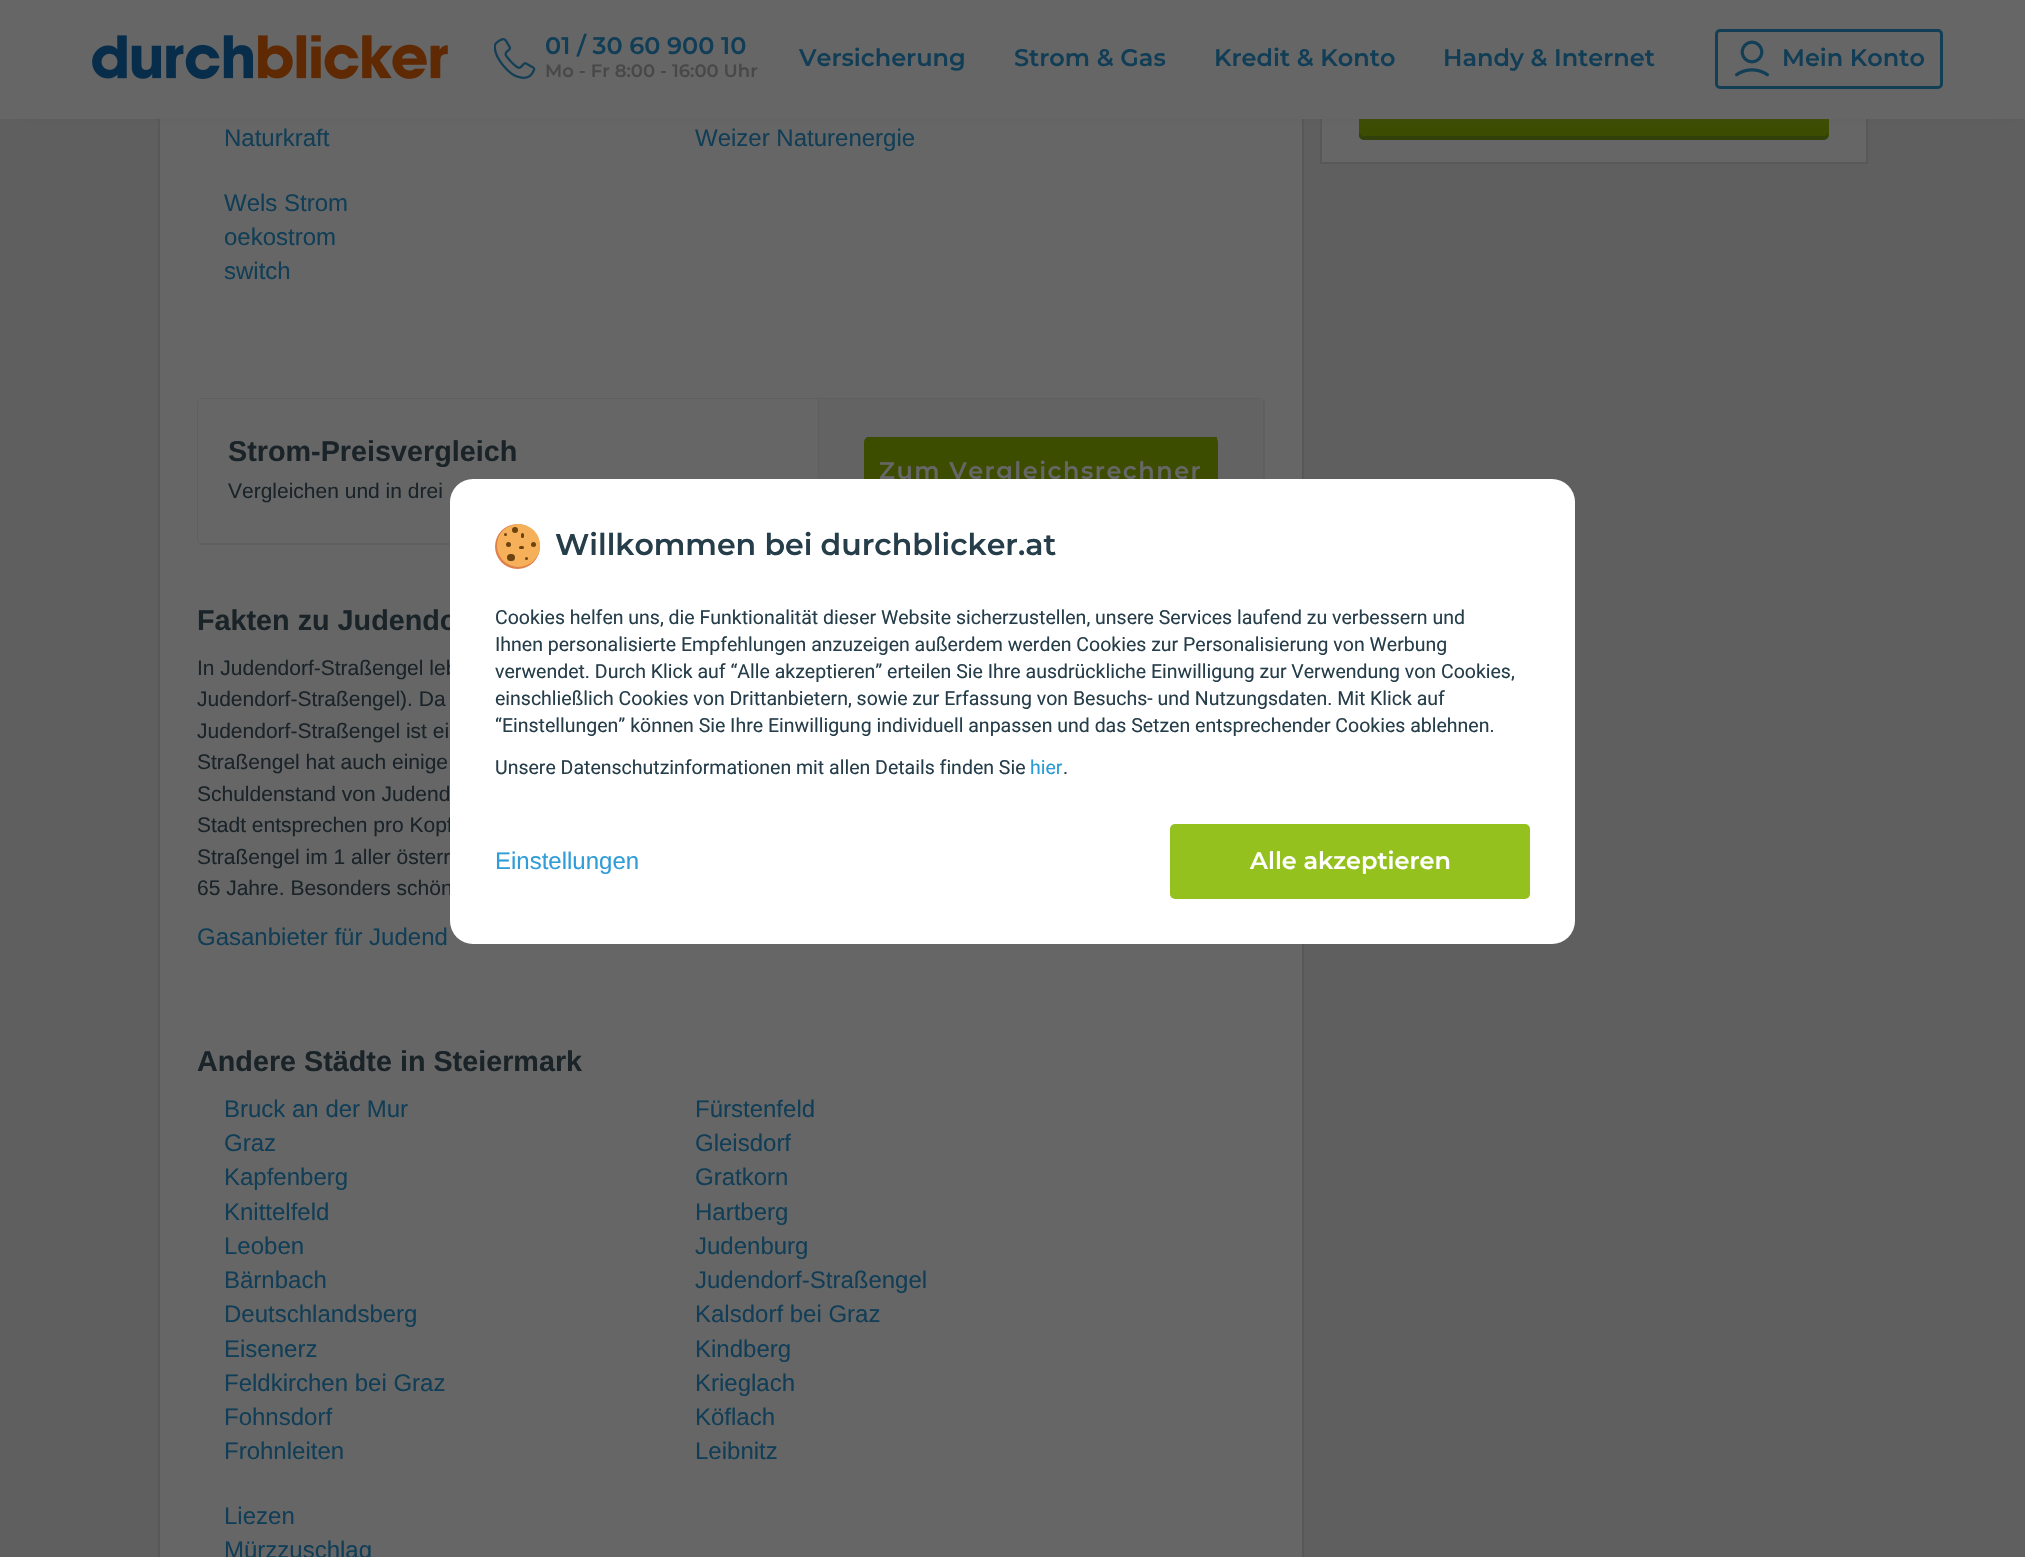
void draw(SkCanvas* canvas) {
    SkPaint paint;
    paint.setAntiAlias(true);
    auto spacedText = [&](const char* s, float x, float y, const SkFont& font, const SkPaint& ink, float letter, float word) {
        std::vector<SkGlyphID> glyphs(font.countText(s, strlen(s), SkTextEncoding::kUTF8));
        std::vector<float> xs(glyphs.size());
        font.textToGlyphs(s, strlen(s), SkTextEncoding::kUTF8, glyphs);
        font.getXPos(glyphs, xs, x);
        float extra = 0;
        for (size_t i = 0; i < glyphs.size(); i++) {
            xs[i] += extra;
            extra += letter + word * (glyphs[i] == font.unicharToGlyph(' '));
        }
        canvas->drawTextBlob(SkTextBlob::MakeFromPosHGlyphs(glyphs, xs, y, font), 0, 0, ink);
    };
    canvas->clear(0xFF5F5F5F);
    paint.setColor(0xFF666666);
    canvas->drawRect(SkRect::MakeXYWH(1322, 119, 544, 43), paint);
    paint.setStyle(SkPaint::kStroke_Style);
    paint.setStrokeWidth(2);
    paint.setColor(0xFF585858);
    canvas->drawRect(SkRect::MakeXYWH(1321, -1, 546, 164), paint);
    paint.setStyle(SkPaint::kFill_Style);
    paint.setColor(0xFF3C4D00);
    canvas->drawRoundRect(SkRect::MakeXYWH(1359, 81, 470, 59), 5, 5, paint);
    paint.setColor(0xFF32400C);
    canvas->drawPath(SkPathBuilder().moveTo(1359, 132).lineTo(1359, 135).cubicTo(1359, 137, 1361, 140, 1364, 140).lineTo(1824, 140).cubicTo(1826, 140, 1828, 137, 1828, 135).lineTo(1828, 86).lineTo(1828, 84).lineTo(1828, 132).cubicTo(1828, 134, 1826, 136, 1824, 136).lineTo(1364, 136).cubicTo(1361, 136, 1359, 134, 1359, 132).close().detach(), paint);
    paint.setColor(0xFF666666);
    canvas->drawRect(SkRect::MakeXYWH(160, 119, 1142, 1438), paint);
    paint.setStyle(SkPaint::kStroke_Style);
    paint.setColor(0xFF585858);
    canvas->drawRect(SkRect::MakeXYWH(159, -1, 1144, 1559), paint);
    paint.setStyle(SkPaint::kFill_Style);
    paint.setColor(0xFF505050);
    paint.setMaskFilter(SkMaskFilter::MakeBlur(kNormal_SkBlurStyle, 9));
    canvas->drawRect(SkRect::MakeXYWH(20, 20, 1995, 88), paint);
    paint.setMaskFilter(nullptr);
    paint.setColor(0xFF666666);
    canvas->drawRect(SkRect::MakeXYWH(0, 0, 2025, 119), paint);
    canvas->drawImageRect(SkImages::DeferredFromEncodedData(SkData::MakeFromFileName("img1.png")), SkRect::MakeXYWH(92, 35, 356, 44), SkSamplingOptions());
    canvas->drawImageRect(SkImages::DeferredFromEncodedData(SkData::MakeFromFileName("img2.png")), SkRect::MakeXYWH(494, 38, 42, 41), SkSamplingOptions());
    SkFont font1(fontMgr->matchFamilyStyle("Montserrat", SkFontStyle(600, SkFontStyle::kNormal_Width, SkFontStyle::kUpright_Slant)), 24);
    font1.setSubpixel(true);
    paint.setColor(0xFF113E56);
    canvas->drawString("01 / 30 60 900 10", 545, 54, font1, paint);
    SkFont font2(fontMgr->matchFamilyStyle("Montserrat", SkFontStyle(600, SkFontStyle::kNormal_Width, SkFontStyle::kUpright_Slant)), 18);
    font2.setSubpixel(true);
    paint.setColor(0xFF484848);
    canvas->drawString("Mo - Fr 8:00 - 16:00 Uhr", 545, 77, font2, paint);
    paint.setColor(0xFF113E56);
    canvas->drawString("Versicherung", 799, 66, font1, paint);
    canvas->drawString("Strom & Gas", 1014, 66, font1, paint);
    canvas->drawString("Kredit & Konto", 1214, 66, font1, paint);
    canvas->drawString("Handy & Internet", 1443, 66, font1, paint);
    paint.setStyle(SkPaint::kStroke_Style);
    paint.setStrokeWidth(3);
    paint.setColor(0xFF133F56);
    canvas->drawRoundRect(SkRect::MakeXYWH(1716.5f, 30.5f, 225, 57), 3.5f, 3.5f, paint);
    canvas->drawImageRect(SkImages::DeferredFromEncodedData(SkData::MakeFromFileName("img3.png")), SkRect::MakeXYWH(1735, 40, 34, 37), SkSamplingOptions());
    paint.setStyle(SkPaint::kFill_Style);
    paint.setColor(0xFF113E56);
    canvas->drawString("Mein Konto", 1782, 66, font1, paint);
    SkFont font3(fontMgr->matchFamilyStyle("Liberation Sans", SkFontStyle::Normal()), 24);
    font3.setSubpixel(true);
    canvas->drawString("Naturkraft", 224, 146, font3, paint);
    canvas->drawString("Weizer Naturenergie", 695, 146, font3, paint);
    canvas->drawString("Wels Strom", 224, 211, font3, paint);
    canvas->drawString("oekostrom", 224, 245, font3, paint);
    canvas->drawString("switch", 224, 279, font3, paint);
    paint.setStyle(SkPaint::kStroke_Style);
    paint.setStrokeWidth(2);
    paint.setColor(0xFF5F5F5F);
    canvas->drawRoundRect(SkRect::MakeXYWH(198, 399, 1066, 145), 4, 4, paint);
    paint.setStyle(SkPaint::kFill_Style);
    paint.setColor(0xFF646464);
    canvas->drawRect(SkRect::MakeXYWH(1258, 399, 5, 2), paint);
    paint.setColor(0xFF666666);
    canvas->drawRect(SkRect::MakeXYWH(198, 399, 620, 144), paint);
    paint.setColor(0xFF5F5F5F);
    canvas->drawRect(SkRect::MakeXYWH(818, 399, 1, 80), paint);
    SkFont font4(fontMgr->matchFamilyStyle("Liberation Sans", SkFontStyle::Bold()), 28.75f);
    font4.setSubpixel(true);
    paint.setColor(0xFF192328);
    canvas->drawString("Strom-Preisvergleich", 228, 461, font4, paint);
    SkFont font5(fontMgr->matchFamilyStyle("Liberation Sans", SkFontStyle::Normal()), 21);
    font5.setSubpixel(true);
    canvas->drawString("Vergleichen und in drei", 228, 498, font5, paint);
    paint.setColor(0xFF636363);
    canvas->drawPath(SkPathBuilder().moveTo(819, 399).lineTo(1258, 399).cubicTo(1261, 399, 1263, 401, 1263, 404).lineTo(1263, 538).cubicTo(1263, 541, 1261, 543, 1258, 543).lineTo(819, 543).close().detach(), paint);
    paint.setColor(0xFF3C4D00);
    canvas->drawRoundRect(SkRect::MakeXYWH(864, 437, 354, 69), 5, 5, paint);
    canvas->drawRect(SkRect::MakeXYWH(867, 437, 350, 2), paint);
    paint.setColor(0xFF666666);
    spacedText("Zum Vergleichsrechner", 879, 479, font1, paint, 1.5f, 0);
    paint.setColor(0xFF192328);
    canvas->drawString("Fakten zu Judendo", 197, 630, font4, paint);
    canvas->drawString("In Judendorf-Straßengel leb", 197, 675, font5, paint);
    canvas->drawString("Judendorf-Straßengel). Da", 197, 706, font5, paint);
    canvas->drawString("Judendorf-Straßengel ist ei", 197, 738, font5, paint);
    canvas->drawString("Straßengel hat auch einige", 197, 769, font5, paint);
    canvas->drawString("Schuldenstand von Judend", 197, 801, font5, paint);
    canvas->drawString("Stadt entsprechen pro Kopf", 197, 832, font5, paint);
    canvas->drawString("Straßengel im 1 aller österr", 197, 864, font5, paint);
    canvas->drawString("65 Jahre. Besonders schön", 197, 895, font5, paint);
    paint.setColor(0xFF113E56);
    canvas->drawString("Gasanbieter für Judend", 197, 945, font3, paint);
    paint.setColor(0xFF192328);
    canvas->drawString("Andere Städte in Steiermark", 197, 1071, font4, paint);
    paint.setColor(0xFF113E56);
    canvas->drawString("Bruck an der Mur", 224, 1117, font3, paint);
    canvas->drawString("Graz", 224, 1151, font3, paint);
    canvas->drawString("Kapfenberg", 224, 1185, font3, paint);
    canvas->drawString("Knittelfeld", 224, 1220, font3, paint);
    canvas->drawString("Leoben", 224, 1254, font3, paint);
    canvas->drawString("Bärnbach", 224, 1288, font3, paint);
    canvas->drawString("Deutschlandsberg", 224, 1322, font3, paint);
    canvas->drawString("Eisenerz", 224, 1357, font3, paint);
    canvas->drawString("Feldkirchen bei Graz", 224, 1391, font3, paint);
    canvas->drawString("Fohnsdorf", 224, 1425, font3, paint);
    canvas->drawString("Frohnleiten", 224, 1459, font3, paint);
    canvas->drawString("Fürstenfeld", 695, 1117, font3, paint);
    canvas->drawString("Gleisdorf", 695, 1151, font3, paint);
    canvas->drawString("Gratkorn", 695, 1185, font3, paint);
    canvas->drawString("Hartberg", 695, 1220, font3, paint);
    canvas->drawString("Judenburg", 695, 1254, font3, paint);
    canvas->drawString("Judendorf-Straßengel", 695, 1288, font3, paint);
    canvas->drawString("Kalsdorf bei Graz", 695, 1322, font3, paint);
    canvas->drawString("Kindberg", 695, 1357, font3, paint);
    canvas->drawString("Krieglach", 695, 1391, font3, paint);
    canvas->drawString("Köflach", 695, 1425, font3, paint);
    canvas->drawString("Leibnitz", 695, 1459, font3, paint);
    canvas->drawString("Liezen", 224, 1524, font3, paint);
    canvas->drawString("Mürzzuschlag", 224, 1558, font3, paint);
    paint.setColor(0xFFFFFFFF);
    canvas->drawRoundRect(SkRect::MakeXYWH(450, 479, 1125, 465), 23, 23, paint);
    paint.setColor(0xFFDF804B);
    canvas->drawCircle(517.5f, 546.5f, 22.5f, paint);
    paint.setColor(0xFFF6B05A);
    canvas->drawCircle(518.5f, 545.5f, 21.5f, paint);
    paint.setColor(0xFF6C420E);
    canvas->drawCircle(515, 530, 3, paint);
    canvas->drawCircle(505.5f, 534.5f, 1.5f, paint);
    canvas->drawRoundRect(SkRect::MakeXYWH(521, 533, 3, 5), 1.5f, 1.5f, paint);
    canvas->drawCircle(508.5f, 544.5f, 2.5f, paint);
    canvas->drawCircle(533.5f, 544.5f, 2.5f, paint);
    canvas->drawRoundRect(SkRect::MakeXYWH(519, 546, 5, 3), 1.5f, 1.5f, paint);
    canvas->drawRoundRect(SkRect::MakeXYWH(507, 554, 8, 7), 3.5f, 3.5f, paint);
    canvas->drawCircle(526.5f, 558.5f, 1.5f, paint);
    SkFont font6(fontMgr->matchFamilyStyle("Montserrat", SkFontStyle(600, SkFontStyle::kNormal_Width, SkFontStyle::kUpright_Slant)), 30);
    font6.setSubpixel(true);
    paint.setColor(0xFF263D4A);
    canvas->drawString("Willkommen bei durchblicker.at", 555, 555, font6, paint);
    SkFont font7(fontMgr->matchFamilyStyle("Roboto", SkFontStyle::Normal()), 19.5f);
    font7.setSubpixel(true);
    canvas->drawString("Cookies helfen uns, die Funktionalität dieser Website sicherzustellen, unsere Services laufend zu verbessern und", 495, 624, font7, paint);
    canvas->drawString("Ihnen personalisierte Empfehlungen anzuzeigen außerdem werden Cookies zur Personalisierung von Werbung", 495, 651, font7, paint);
    canvas->drawString("verwendet. Durch Klick auf “Alle akzeptieren” erteilen Sie Ihre ausdrückliche Einwilligung zur Verwendung von Cookies,", 495, 678, font7, paint);
    canvas->drawString("einschließlich Cookies von Drittanbietern, sowie zur Erfassung von Besuchs- und Nutzungsdaten. Mit Klick auf", 495, 705, font7, paint);
    canvas->drawString("“Einstellungen” können Sie Ihre Einwilligung individuell anpassen und das Setzen entsprechender Cookies ablehnen.", 495, 732, font7, paint);
    canvas->drawString("Unsere Datenschutzinformationen mit allen Details finden Sie", 495, 774, font7, paint);
    paint.setColor(0xFF2A9CD7);
    canvas->drawString("hier", 1030, 774, font7, paint);
    paint.setColor(0xFF263D4A);
    canvas->drawString(".", 1063, 774, font7, paint);
    paint.setColor(0xFF309DD8);
    canvas->drawString("Einstellungen", 495, 869, font3, paint);
    paint.setColor(0xFF95C11F);
    canvas->drawRoundRect(SkRect::MakeXYWH(1170, 824, 360, 75), 5, 5, paint);
    paint.setColor(0xFFFFFFFF);
    canvas->drawString("Alle akzeptieren", 1250, 869, font1, paint);
}
